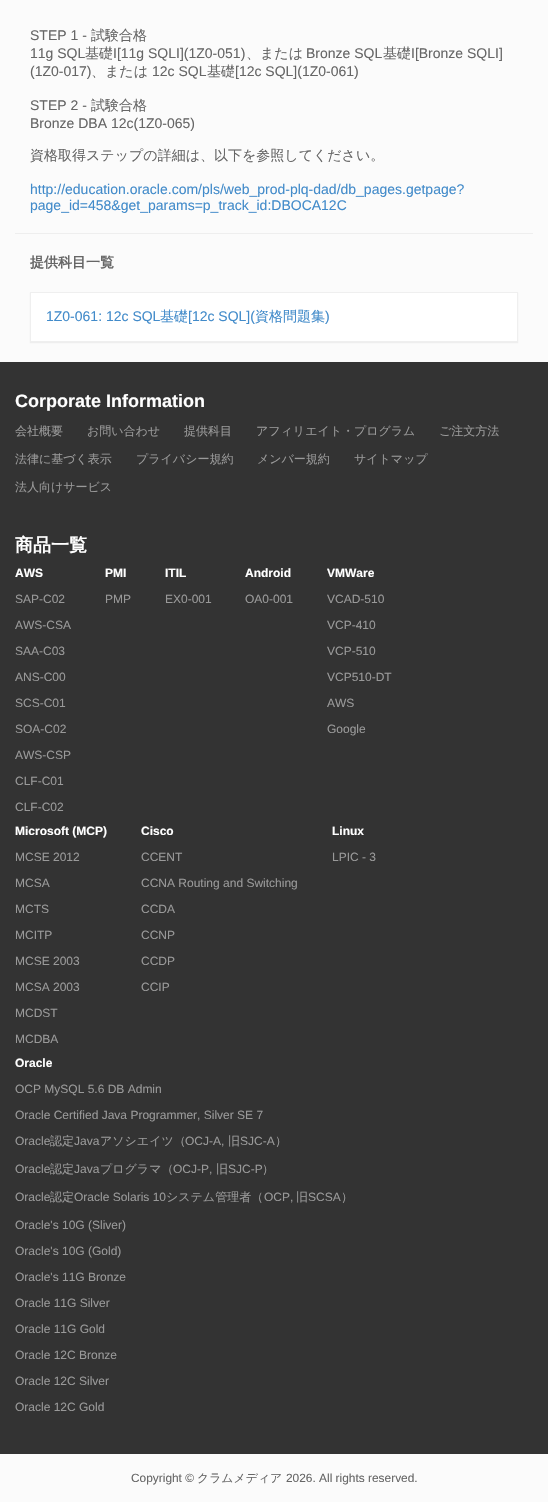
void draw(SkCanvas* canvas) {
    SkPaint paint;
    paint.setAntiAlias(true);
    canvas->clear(0xFFFBFBFB);
    SkFont font1(fontMgr->matchFamilyStyle("Liberation Sans", SkFontStyle::Normal()), 14);
    font1.setSubpixel(true);
    paint.setColor(0xFF666666);
    canvas->drawString("STEP 1 -", 30, 40, font1, paint);
    SkFont font2(fontMgr->matchFamilyStyle("WenQuanYi Zen Hei", SkFontStyle(500, SkFontStyle::kNormal_Width, SkFontStyle::kUpright_Slant)), 14);
    font2.setSubpixel(true);
    canvas->drawString("試験合格", 91, 40, font2, paint);
    canvas->drawString("11g SQL", 30, 58, font1, paint);
    canvas->drawString("基礎", 85, 58, font2, paint);
    canvas->drawString("I[11g SQLI](1Z0-051)", 113, 58, font1, paint);
    canvas->drawString("、または", 246, 58, font2, paint);
    canvas->drawString("Bronze SQL", 306, 58, font1, paint);
    canvas->drawString("基礎", 383, 58, font2, paint);
    canvas->drawString("I[Bronze SQLI]", 411, 58, font1, paint);
    canvas->drawString("(1Z0-017)", 30, 76, font1, paint);
    canvas->drawString("、または", 91, 76, font2, paint);
    canvas->drawString("12c SQL", 152, 76, font1, paint);
    canvas->drawString("基礎", 207, 76, font2, paint);
    canvas->drawString("[12c SQL](1Z0-061)", 235, 76, font1, paint);
    canvas->drawString("STEP 2 -", 30, 110, font1, paint);
    canvas->drawString("試験合格", 91, 110, font2, paint);
    canvas->drawString("Bronze DBA 12c(1Z0-065)", 30, 128, font1, paint);
    canvas->drawString("資格取得ステップの詳細は、以下を参照してください。", 30, 160, font2, paint);
    paint.setColor(0xFF428BCA);
    canvas->drawString("http://education.oracle.com/pls/web_prod-plq-dad/db_pages.getpage?", 30, 194, font1, paint);
    canvas->drawString("page_id=458&get_params=p_track_id:DBOCA12C", 30, 210, font1, paint);
    paint.setColor(0xFFEEEEEE);
    canvas->drawRect(SkRect::MakeXYWH(15, 233, 518, 1), paint);
    SkFont font3(fontMgr->matchFamilyStyle("WenQuanYi Zen Hei", SkFontStyle::Bold()), 14);
    font3.setSubpixel(true);
    paint.setColor(0xFF666666);
    canvas->drawString("提供科目一覧", 30, 267, font3, paint);
    paint.setColor(0x0D000000);
    paint.setMaskFilter(SkMaskFilter::MakeBlur(kNormal_SkBlurStyle, 0.5f));
    canvas->drawRect(SkRect::MakeXYWH(30, 293, 488, 50), paint);
    paint.setMaskFilter(nullptr);
    paint.setColor(0xFFFFFFFF);
    canvas->drawRect(SkRect::MakeXYWH(30.5f, 292.5f, 487, 49), paint);
    paint.setStyle(SkPaint::kStroke_Style);
    paint.setStrokeWidth(1);
    paint.setColor(0xFFEFEFEF);
    canvas->drawRect(SkRect::MakeXYWH(30.5f, 292.5f, 487, 49), paint);
    paint.setStyle(SkPaint::kFill_Style);
    paint.setColor(0xFF428BCA);
    canvas->drawString("1Z0-061: 12c SQL", 46, 321, font1, paint);
    canvas->drawString("基礎", 160, 321, font2, paint);
    canvas->drawString("[12c SQL](", 188, 321, font1, paint);
    canvas->drawString("資格問題集", 255, 321, font2, paint);
    canvas->drawString(")", 325, 321, font1, paint);
    paint.setColor(0xFF333333);
    canvas->drawRect(SkRect::MakeXYWH(0, 362, 548, 1092), paint);
    SkFont font4(fontMgr->matchFamilyStyle("Liberation Sans", SkFontStyle::Bold()), 18);
    font4.setSubpixel(true);
    paint.setColor(0xFFFFFFFF);
    canvas->drawString("Corporate Information", 15, 407, font4, paint);
    SkFont font5(fontMgr->matchFamilyStyle("WenQuanYi Zen Hei", SkFontStyle(500, SkFontStyle::kNormal_Width, SkFontStyle::kUpright_Slant)), 12);
    font5.setSubpixel(true);
    paint.setColor(0xFF999999);
    canvas->drawString("会社概要", 15, 435, font5, paint);
    canvas->drawString("お問い合わせ", 87, 435, font5, paint);
    canvas->drawString("提供科目", 184, 435, font5, paint);
    canvas->drawString("アフィリエイト・プログラム", 256, 435, font5, paint);
    canvas->drawString("ご注文方法", 439, 435, font5, paint);
    canvas->drawString("法律に基づく表示", 15, 463, font5, paint);
    canvas->drawString("プライバシー規約", 136, 463, font5, paint);
    canvas->drawString("メンバー規約", 257, 463, font5, paint);
    canvas->drawString("サイトマップ", 354, 463, font5, paint);
    canvas->drawString("法人向けサービス", 15, 491, font5, paint);
    SkFont font6(fontMgr->matchFamilyStyle("WenQuanYi Zen Hei", SkFontStyle::Bold()), 18);
    font6.setSubpixel(true);
    paint.setColor(0xFFFFFFFF);
    canvas->drawString("商品一覧", 15, 551, font6, paint);
    SkFont font7(fontMgr->matchFamilyStyle("Liberation Sans", SkFontStyle::Bold()), 12);
    font7.setSubpixel(true);
    canvas->drawString("AWS", 15, 577, font7, paint);
    SkFont font8(fontMgr->matchFamilyStyle("Liberation Sans", SkFontStyle::Normal()), 12);
    font8.setSubpixel(true);
    paint.setColor(0xFF999999);
    canvas->drawString("SAP-C02", 15, 603, font8, paint);
    canvas->drawString("AWS-CSA", 15, 629, font8, paint);
    canvas->drawString("SAA-C03", 15, 655, font8, paint);
    canvas->drawString("ANS-C00", 15, 681, font8, paint);
    canvas->drawString("SCS-C01", 15, 707, font8, paint);
    canvas->drawString("SOA-C02", 15, 733, font8, paint);
    canvas->drawString("AWS-CSP", 15, 759, font8, paint);
    canvas->drawString("CLF-C01", 15, 785, font8, paint);
    canvas->drawString("CLF-C02", 15, 811, font8, paint);
    paint.setColor(0xFFFFFFFF);
    canvas->drawString("PMI", 105, 577, font7, paint);
    paint.setColor(0xFF999999);
    canvas->drawString("PMP", 105, 603, font8, paint);
    paint.setColor(0xFFFFFFFF);
    canvas->drawString("ITIL", 165, 577, font7, paint);
    paint.setColor(0xFF999999);
    canvas->drawString("EX0-001", 165, 603, font8, paint);
    paint.setColor(0xFFFFFFFF);
    canvas->drawString("Android", 245, 577, font7, paint);
    paint.setColor(0xFF999999);
    canvas->drawString("OA0-001", 245, 603, font8, paint);
    paint.setColor(0xFFFFFFFF);
    canvas->drawString("VMWare", 327, 577, font7, paint);
    paint.setColor(0xFF999999);
    canvas->drawString("VCAD-510", 327, 603, font8, paint);
    canvas->drawString("VCP-410", 327, 629, font8, paint);
    canvas->drawString("VCP-510", 327, 655, font8, paint);
    canvas->drawString("VCP510-DT", 327, 681, font8, paint);
    canvas->drawString("AWS", 327, 707, font8, paint);
    canvas->drawString("Google", 327, 733, font8, paint);
    paint.setColor(0xFFFFFFFF);
    canvas->drawString("Microsoft (MCP)", 15, 835, font7, paint);
    paint.setColor(0xFF999999);
    canvas->drawString("MCSE 2012", 15, 861, font8, paint);
    canvas->drawString("MCSA", 15, 887, font8, paint);
    canvas->drawString("MCTS", 15, 913, font8, paint);
    canvas->drawString("MCITP", 15, 939, font8, paint);
    canvas->drawString("MCSE 2003", 15, 965, font8, paint);
    canvas->drawString("MCSA 2003", 15, 991, font8, paint);
    canvas->drawString("MCDST", 15, 1017, font8, paint);
    canvas->drawString("MCDBA", 15, 1043, font8, paint);
    paint.setColor(0xFFFFFFFF);
    canvas->drawString("Cisco", 141, 835, font7, paint);
    paint.setColor(0xFF999999);
    canvas->drawString("CCENT", 141, 861, font8, paint);
    canvas->drawString("CCNA Routing and Switching", 141, 887, font8, paint);
    canvas->drawString("CCDA", 141, 913, font8, paint);
    canvas->drawString("CCNP", 141, 939, font8, paint);
    canvas->drawString("CCDP", 141, 965, font8, paint);
    canvas->drawString("CCIP", 141, 991, font8, paint);
    paint.setColor(0xFFFFFFFF);
    canvas->drawString("Linux", 332, 835, font7, paint);
    paint.setColor(0xFF999999);
    canvas->drawString("LPIC - 3", 332, 861, font8, paint);
    paint.setColor(0xFFFFFFFF);
    canvas->drawString("Oracle", 15, 1067, font7, paint);
    paint.setColor(0xFF999999);
    canvas->drawString("OCP MySQL 5.6 DB Admin", 15, 1093, font8, paint);
    canvas->drawString("Oracle Certified Java Programmer, Silver SE 7", 15, 1119, font8, paint);
    canvas->drawString("Oracle", 15, 1145, font8, paint);
    canvas->drawString("認定", 50, 1145, font5, paint);
    canvas->drawString("Java", 74, 1145, font8, paint);
    canvas->drawString("アソシエイツ（", 100, 1145, font5, paint);
    canvas->drawString("OCJ-A,", 185, 1145, font8, paint);
    canvas->drawString("旧", 228, 1145, font5, paint);
    canvas->drawString("SJC-A", 240, 1145, font8, paint);
    canvas->drawString("）", 275, 1145, font5, paint);
    canvas->drawString("Oracle", 15, 1173, font8, paint);
    canvas->drawString("認定", 50, 1173, font5, paint);
    canvas->drawString("Java", 74, 1173, font8, paint);
    canvas->drawString("プログラマ（", 100, 1173, font5, paint);
    canvas->drawString("OCJ-P,", 173, 1173, font8, paint);
    canvas->drawString("旧", 216, 1173, font5, paint);
    canvas->drawString("SJC-P", 228, 1173, font8, paint);
    canvas->drawString("）", 262, 1173, font5, paint);
    canvas->drawString("Oracle", 15, 1201, font8, paint);
    canvas->drawString("認定", 50, 1201, font5, paint);
    canvas->drawString("Oracle Solaris 10", 74, 1201, font8, paint);
    canvas->drawString("システム管理者（", 166, 1201, font5, paint);
    canvas->drawString("OCP,", 264, 1201, font8, paint);
    canvas->drawString("旧", 296, 1201, font5, paint);
    canvas->drawString("SCSA", 308, 1201, font8, paint);
    canvas->drawString("）", 341, 1201, font5, paint);
    canvas->drawString("Oracle's 10G (Sliver)", 15, 1229, font8, paint);
    canvas->drawString("Oracle's 10G (Gold)", 15, 1255, font8, paint);
    canvas->drawString("Oracle's 11G Bronze", 15, 1281, font8, paint);
    canvas->drawString("Oracle 11G Silver", 15, 1307, font8, paint);
    canvas->drawString("Oracle 11G Gold", 15, 1333, font8, paint);
    canvas->drawString("Oracle 12C Bronze", 15, 1359, font8, paint);
    canvas->drawString("Oracle 12C Silver", 15, 1385, font8, paint);
    canvas->drawString("Oracle 12C Gold", 15, 1411, font8, paint);
    SkFont font9(fontMgr->matchFamilyStyle("Liberation Sans", SkFontStyle::Normal()), 11.9f);
    font9.setSubpixel(true);
    paint.setColor(0xFF666666);
    canvas->drawString("Copyright ©", 131, 1482, font9, paint);
    SkFont font10(fontMgr->matchFamilyStyle("WenQuanYi Zen Hei", SkFontStyle(500, SkFontStyle::kNormal_Width, SkFontStyle::kUpright_Slant)), 11.9f);
    font10.setSubpixel(true);
    canvas->drawString("クラムメディア", 197, 1482, font10, paint);
    canvas->drawString("2026. All rights reserved.", 286, 1482, font9, paint);
}
